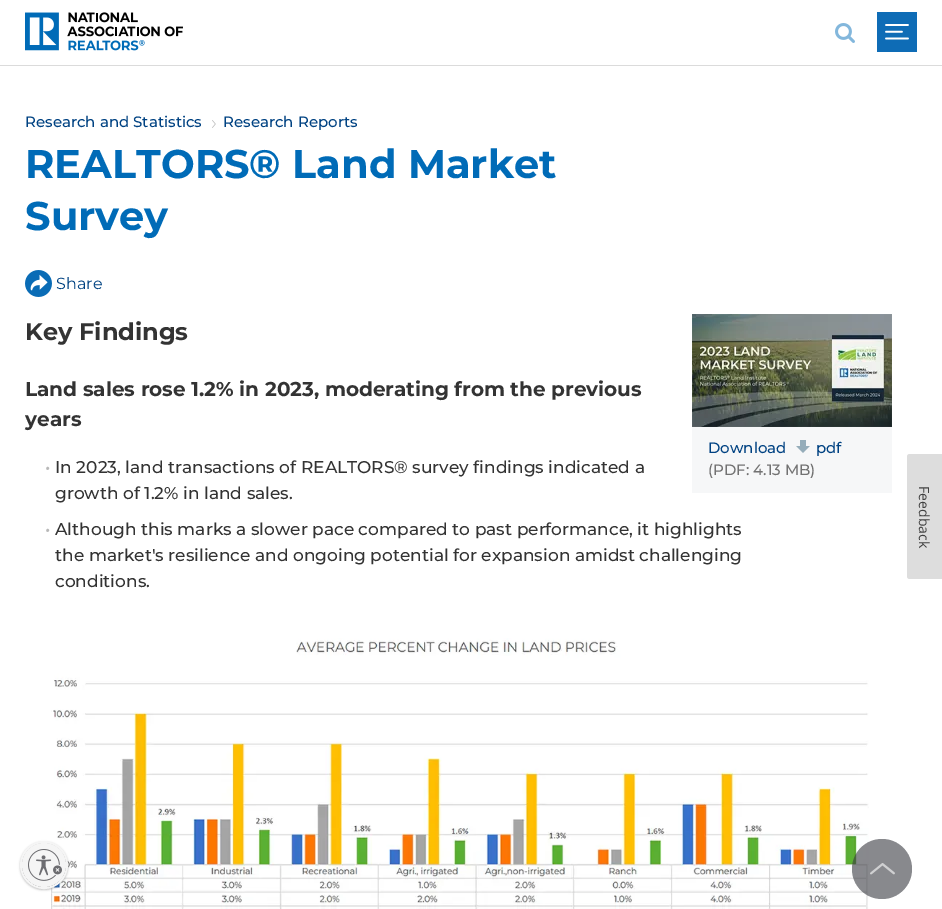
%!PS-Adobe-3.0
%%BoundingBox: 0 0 942 909
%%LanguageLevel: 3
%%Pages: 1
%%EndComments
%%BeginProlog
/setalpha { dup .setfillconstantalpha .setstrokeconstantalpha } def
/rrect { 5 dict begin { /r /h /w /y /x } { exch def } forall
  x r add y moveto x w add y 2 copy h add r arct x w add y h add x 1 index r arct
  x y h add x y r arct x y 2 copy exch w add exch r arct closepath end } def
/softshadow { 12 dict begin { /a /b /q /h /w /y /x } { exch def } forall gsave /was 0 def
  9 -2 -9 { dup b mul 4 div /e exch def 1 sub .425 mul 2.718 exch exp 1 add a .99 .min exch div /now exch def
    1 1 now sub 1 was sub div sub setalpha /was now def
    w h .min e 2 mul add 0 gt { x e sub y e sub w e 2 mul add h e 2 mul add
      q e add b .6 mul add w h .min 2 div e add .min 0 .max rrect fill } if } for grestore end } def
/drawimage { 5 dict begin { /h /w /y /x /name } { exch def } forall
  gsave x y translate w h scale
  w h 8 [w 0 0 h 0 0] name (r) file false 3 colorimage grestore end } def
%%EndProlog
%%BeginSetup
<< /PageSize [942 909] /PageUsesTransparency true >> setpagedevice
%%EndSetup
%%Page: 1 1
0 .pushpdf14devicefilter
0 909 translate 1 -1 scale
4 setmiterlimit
1 setgray
0 0 942 909 rectfill
0.859 setgray
0 65 942 1 rectfill
(images/1.raw) 25 12 158 39 drawimage
(images/2.raw) 835 23 20 20 drawimage
(images/3.raw) 877 12 40 40 drawimage
(images/4.raw) 212 120 4 8 drawimage
(images/5.raw) 25 270 27 27 drawimage
0.965 0.969 0.973 setrgbcolor
692 314 200 179 rectfill
(images/6.raw) 692 314 200 113 drawimage
(images/7.raw) 796 440 14 13 drawimage
(images/8.raw) 51 638 818 271 drawimage
0.6 setalpha
0.224 0.227 0.255 setrgbcolor
newpath 882 869 30 0 360 arc closepath fill
1 setalpha
(images/9.raw) 870 863 25 12 drawimage
0.867 setgray
newpath 942 454 moveto 942 579 lineto 910 579 lineto 908 579 907 578 907 576 curveto 907 457 lineto 907 455 908 454 910 454 curveto closepath fill
0 setgray
20 842 48 48 24 1 0.24 softshadow
0.961 setgray
2 setlinewidth
newpath 44 865 23 0 360 arc closepath stroke
gsave
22 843 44 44 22 rrect clip newpath
0 setgray
22 844 44 44 22 1 0.24 softshadow
grestore
newpath 44 865 22 0 360 arc closepath fill
(images/10.raw) 28 849 34 32 drawimage
/Montserrat-Medium [15 0 0 -15 0 0] selectfont
0 0.259 0.51 setrgbcolor
25 127 moveto (Research and Statistics) show
223 127 moveto (Research Reports) show
/Montserrat-Bold [40 0 0 -40 0 0] selectfont
0 0.42 0.718 setrgbcolor
25 178 moveto (REALTORS® Land Market) show
25 230 moveto (Survey) show
/Montserrat-Regular [16 0 0 -16 0 0] selectfont
0 0.259 0.51 setrgbcolor
56 289 moveto (Share) show
/Montserrat-Bold [24 0 0 -24 0 0] selectfont
0.2 setgray
25 340 moveto (Key Findings) show
/Montserrat-Bold [20 0 0 -20 0 0] selectfont
25 396 moveto (Land sales rose 1.2% in 2023, moderating from the previous) show
25 426 moveto (years) show
/Montserrat-Medium [17 0 0 -17 0 0] selectfont
0.722 setgray
45 473 moveto (•) show
0.2 setgray
55 473 moveto (In 2023, land transactions of REALTORS® survey findings indicated a) show
55 499 moveto (growth of 1.2% in land sales.) show
0.722 setgray
45 535 moveto (•) show
0.2 setgray
55 535 moveto (Although this marks a slower pace compared to past performance, it highlights) show
55 561 moveto (the market's resilience and ongoing potential for expansion amidst challenging) show
55 587 moveto (conditions.) show
/Montserrat-Medium [15 0 0 -15 0 0] selectfont
0 0.259 0.51 setrgbcolor
708 453 moveto (Download) show
816 453 moveto (pdf) show
0.447 setgray
708 475 moveto (\(PDF: 4.13 MB\)) show
/OpenSans-Regular [14 0 0 -14 0 0] selectfont
0.251 setgray
gsave 919 486 translate 90 rotate 0 0 moveto (Feedback) show grestore
.poppdf14devicefilter showpage
%%EOF
